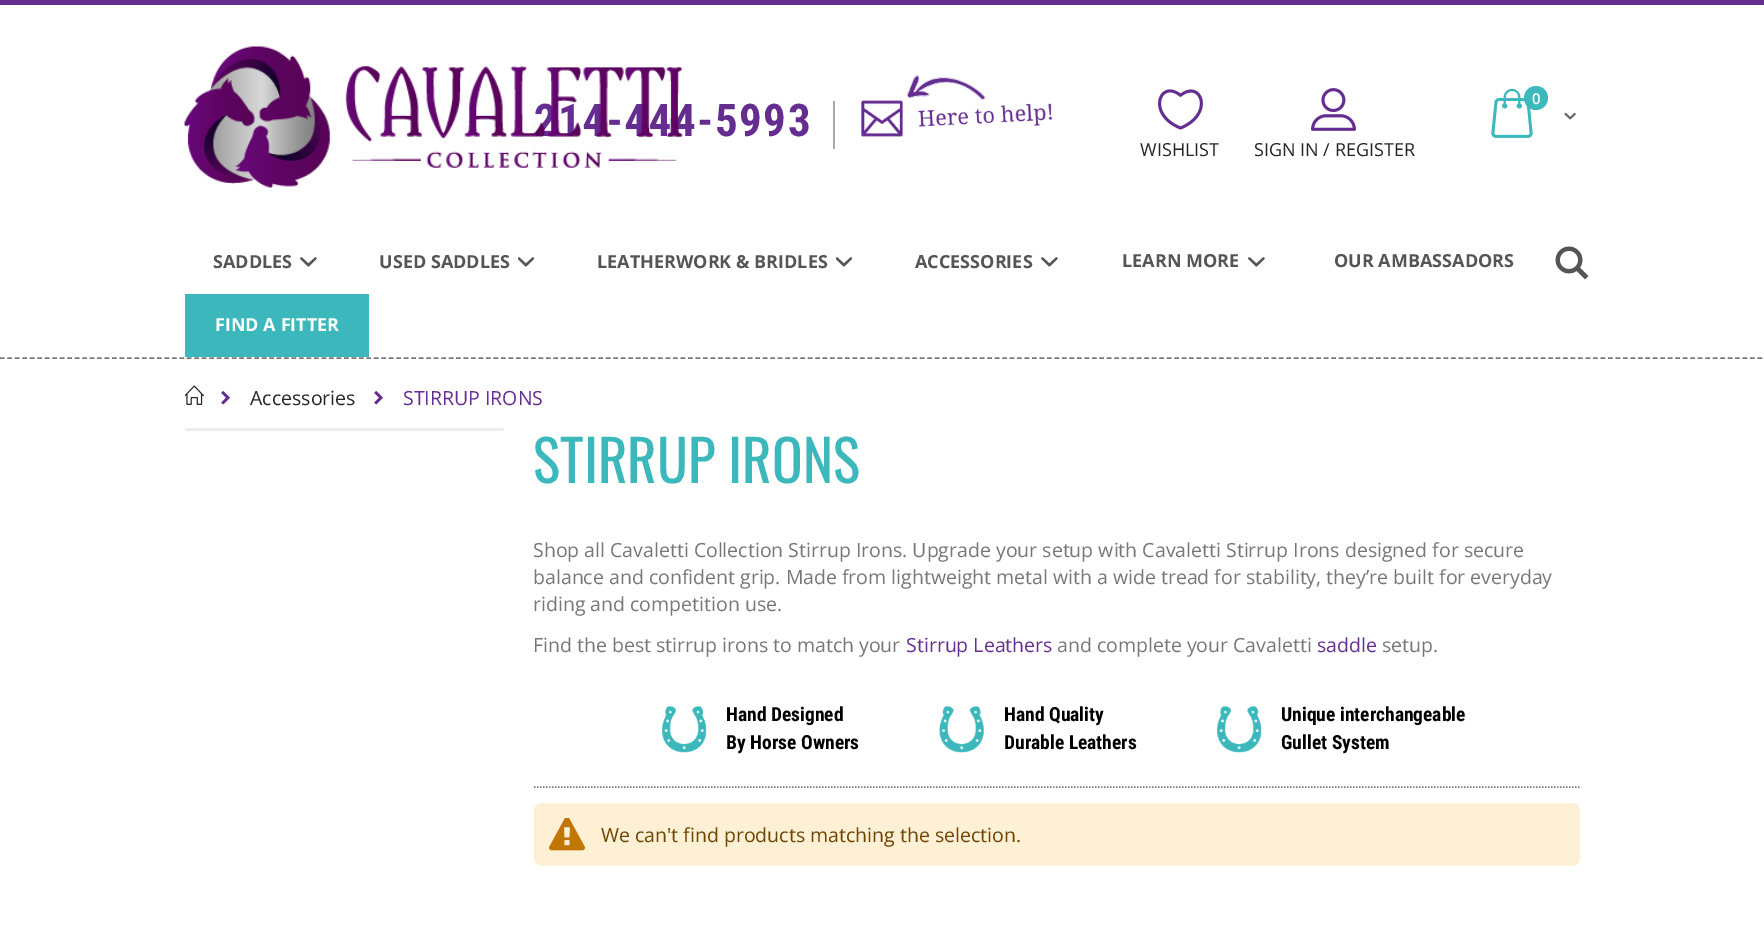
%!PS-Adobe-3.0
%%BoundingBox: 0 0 1764 945
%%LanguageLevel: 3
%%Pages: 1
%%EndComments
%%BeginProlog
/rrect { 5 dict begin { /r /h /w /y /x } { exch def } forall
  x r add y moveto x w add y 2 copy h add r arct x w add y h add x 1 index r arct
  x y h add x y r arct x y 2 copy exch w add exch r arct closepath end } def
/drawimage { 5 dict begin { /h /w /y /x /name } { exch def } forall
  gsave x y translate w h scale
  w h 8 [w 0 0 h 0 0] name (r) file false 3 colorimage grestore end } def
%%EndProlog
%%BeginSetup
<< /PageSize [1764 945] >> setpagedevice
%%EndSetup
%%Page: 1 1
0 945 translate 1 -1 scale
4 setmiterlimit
1 setgray
0 0 1764 945 rectfill
0.4 0.176 0.569 setrgbcolor
0 0 1764 5 rectfill
0.467 setgray
1.5 setlinewidth
[4.5 2.98] 0 setdash
newpath 0 358 moveto 1764 358 lineto stroke
(images/2.raw) 1491 88 42 50 drawimage
0.239 0.725 0.741 setrgbcolor
newpath 1536 98 12 0 360 arc closepath fill
(images/3.raw) 1564 112 12 8 drawimage
0.667 setgray
833 101 2 48 rectfill
(images/4.raw) 861 75 192 62 drawimage
(images/5.raw) 1158 89 45 41 drawimage
(images/6.raw) 1311 88 45 43 drawimage
(images/7.raw) 1555 246 34 34 drawimage
(images/8.raw) 300 257 17 10 drawimage
(images/9.raw) 518 257 16 10 drawimage
(images/9.raw) 836 257 16 10 drawimage
(images/8.raw) 1041 257 17 10 drawimage
(images/8.raw) 1248 257 17 10 drawimage
0.235 0.722 0.741 setrgbcolor
185 294 184 63 rectfill
(images/10.raw) 185 385 19 20 drawimage
(images/11.raw) 221 391 9 14 drawimage
(images/11.raw) 374 391 9 14 drawimage
0.933 setgray
185 428 319 3 1.5 rrect fill
(images/12.raw) 662 706 45 47 drawimage
(images/13.raw) 939 706 45 47 drawimage
(images/14.raw) 1217 706 45 47 drawimage
0.467 setgray
[1.5 1.5] 0 setdash
newpath 534 787 moveto 1579.5 787 lineto stroke
0.992 0.941 0.835 setrgbcolor
534 803 1046 63 8 rrect fill
(images/15.raw) 549 818 36 33 drawimage
/OpenSans-SemiBold [15 0 0 -15 0 0] selectfont
1 setgray
1532 104 moveto (0) show
/RobotoCondensed-Bold [45 0 0 -45 0 0] selectfont
0.4 0.176 0.569 setrgbcolor
534 136 moveto 1.5 0 (214-444-5993) ashow
(images/1.raw) 184 46 499 142 drawimage
/OpenSans-Regular [18 0 0 -18 0 0] selectfont
0.145 setgray
1140 156 moveto (WISHLIST) show
1254 156 moveto (SIGN IN / REGISTER) show
/OpenSans-Bold [18 0 0 -18 0 0] selectfont
0.333 setgray
213 268 moveto (SADDLES) show
379 268 moveto (USED SADDLES) show
597 268 moveto (LEATHERWORK & BRIDLES) show
915 268 moveto (ACCESSORIES) show
1122 267 moveto (LEARN MORE) show
1334 267 moveto (OUR AMBASSADORS) show
1 setgray
215 331 moveto (FIND A FITTER) show
/OpenSans-Regular [19.5 0 0 -19.5 0 0] selectfont
0.145 setgray
250 405 moveto (Accessories) show
0.4 0.176 0.569 setrgbcolor
403 405 moveto (STIRRUP IRONS) show
/Oswald-Regular [57 0 0 -57 0 0] selectfont
0.235 0.722 0.741 setrgbcolor
533 483 moveto (STIRRUP IRONS) show
/OpenSans-Regular [19.5 0 0 -19.5 0 0] selectfont
0.467 setgray
533 557 moveto (Shop all Cavaletti Collection Stirrup Irons. Upgrade your setup with Cavaletti Stirrup Irons designed for secure) show
533 584 moveto (balance and confident grip. Made from lightweight metal with a wide tread for stability, they’re built for everyday) show
533 611 moveto (riding and competition use.) show
533 652 moveto (Find the best stirrup irons to match your) show
0.4 0.176 0.569 setrgbcolor
906 652 moveto (Stirrup Leathers) show
0.467 setgray
1057 652 moveto (and complete your Cavaletti) show
0.4 0.176 0.569 setrgbcolor
1317 652 moveto (saddle) show
0.467 setgray
1382 652 moveto (setup.) show
/RobotoCondensed-Bold [19.5 0 0 -19.5 0 0] selectfont
0 setgray
726 721 moveto (Hand Designed) show
726 749 moveto (By Horse Owners) show
1004 721 moveto (Hand Quality) show
1004 749 moveto (Durable Leathers) show
1281 721 moveto (Unique interchangeable) show
1281 749 moveto (Gullet System) show
/OpenSans-Regular [19.5 0 0 -19.5 0 0] selectfont
0.435 0.267 0 setrgbcolor
601 842 moveto (We can't find products matching the selection.) show
showpage
%%EOF
